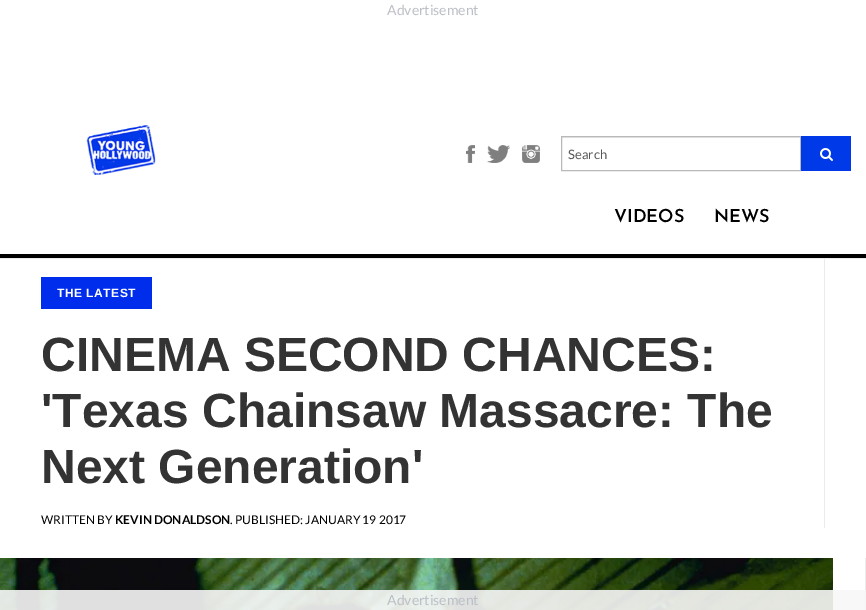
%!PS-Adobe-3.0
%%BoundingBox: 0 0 866 610
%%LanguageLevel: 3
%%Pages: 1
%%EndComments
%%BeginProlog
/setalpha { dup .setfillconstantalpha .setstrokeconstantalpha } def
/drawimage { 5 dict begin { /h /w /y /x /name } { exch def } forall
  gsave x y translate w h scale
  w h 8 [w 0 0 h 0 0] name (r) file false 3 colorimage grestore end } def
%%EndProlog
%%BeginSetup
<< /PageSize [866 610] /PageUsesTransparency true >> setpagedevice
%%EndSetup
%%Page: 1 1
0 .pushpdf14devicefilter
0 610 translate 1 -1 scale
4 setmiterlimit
1 setgray
0 0 866 610 rectfill
0 setgray
0 254 866 4 rectfill
(images/1.raw) 86 125 70 50 drawimage
(images/2.raw) 466 145 9 18 drawimage
(images/3.raw) 487 145 23 18 drawimage
(images/4.raw) 522 145 18 18 drawimage
0.925 setgray
562 137 238 1 rectfill
0.725 setgray
561.5 136.5 239 34 rectstroke
0 0.224 0.91 setrgbcolor
801 136 50 35 rectfill
(images/5.raw) 820 148 13 13 drawimage
0.922 setgray
0 258 866 1 rectfill
824 259 1 269 rectfill
0 0.176 0.925 setrgbcolor
41 277 111 32 rectfill
0.922 setgray
865 558 1 52 rectfill
(images/6.raw) 0 558 833 52 drawimage
0.9 setalpha
0.969 setgray
0 590 866 20 rectfill
/Lato-Regular [14 0 0 -14 0 0] selectfont
1 setalpha
0.737 0.749 0.773 setrgbcolor
387 15 moveto (Advertisement) show
/Lato-Regular [13 0 0 -13 0 0] selectfont
0.337 setgray
568 159 moveto (Search) show
/JosefinSans-SemiBold [18 0 0 -18 0 0] selectfont
0 setgray
614 222 moveto (VIDEOS) show
714 222 moveto (NEWS) show
/LiberationSans-Bold [12 0 0 -12 0 0] selectfont
1 setgray
57 297 moveto 0.5 0 (THE LATEST) ashow
/LiberationSans-Bold [48 0 0 -48 0 0] selectfont
0.2 setgray
41 371 moveto (CINEMA SECOND CHANCES:) show
41 427 moveto ('Texas Chainsaw Massacre: The) show
41 483 moveto (Next Generation') show
/Lato-Regular [12 0 0 -12 0 0] selectfont
0 setgray
41 524 moveto (WRITTEN BY) show
/Lato-Bold [12 0 0 -12 0 0] selectfont
115 524 moveto (KEVIN DONALDSON) show
/Lato-Regular [12 0 0 -12 0 0] selectfont
230 524 moveto (. PUBLISHED: JANUARY 19 2017) show
/Lato-Regular [14 0 0 -14 0 0] selectfont
0.737 0.749 0.773 setrgbcolor
387 605 moveto (Advertisement) show
.poppdf14devicefilter showpage
%%EOF
